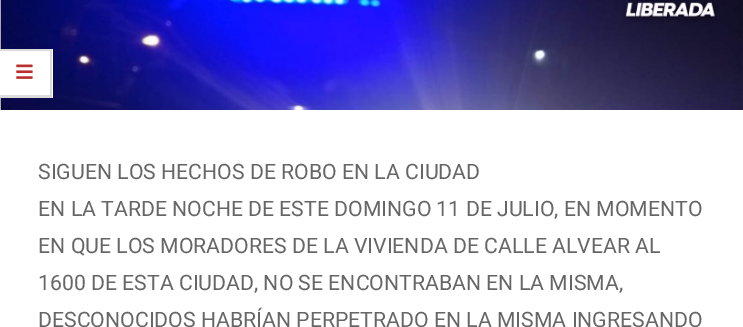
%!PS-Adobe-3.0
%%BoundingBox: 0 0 743 327
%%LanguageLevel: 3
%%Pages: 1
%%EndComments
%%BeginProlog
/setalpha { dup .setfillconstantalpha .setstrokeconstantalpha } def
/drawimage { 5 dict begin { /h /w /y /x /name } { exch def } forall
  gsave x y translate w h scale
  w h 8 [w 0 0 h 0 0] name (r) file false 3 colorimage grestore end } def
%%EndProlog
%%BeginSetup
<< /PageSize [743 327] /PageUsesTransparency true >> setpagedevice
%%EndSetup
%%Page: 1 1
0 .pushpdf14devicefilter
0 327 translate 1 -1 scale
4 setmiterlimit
1 setgray
0 0 743 327 rectfill
(images/2.raw) 0 0 743 110 drawimage
0 49 53 49 rectfill
0.859 setgray
newpath 0 49 moveto 52 49 lineto 50 51 lineto 0 51 lineto closepath fill
0.14 setalpha
0 setgray
newpath 52 49 moveto 52 98 lineto 50 95 lineto 50 51 lineto closepath fill
newpath 52 98 moveto 0 98 lineto 0 95 lineto 50 95 lineto closepath fill
1 setalpha
(images/1.raw) 16 64 17 15 drawimage
/Roboto-Regular [21.25 0 0 -21.25 0 0] selectfont
0.4 setgray
38 179 moveto (SIGUEN LOS HECHOS DE ROBO EN LA CIUDAD) show
38 216 moveto (EN LA TARDE NOCHE DE ESTE DOMINGO 11 DE JULIO, EN MOMENTO) show
38 253 moveto (EN QUE LOS MORADORES DE LA VIVIENDA DE CALLE ALVEAR AL) show
38 290 moveto (1600 DE ESTA CIUDAD, NO SE ENCONTRABAN EN LA MISMA,) show
38 327 moveto (DESCONOCIDOS HABRÍAN PERPETRADO EN LA MISMA INGRESANDO) show
.poppdf14devicefilter showpage
%%EOF
